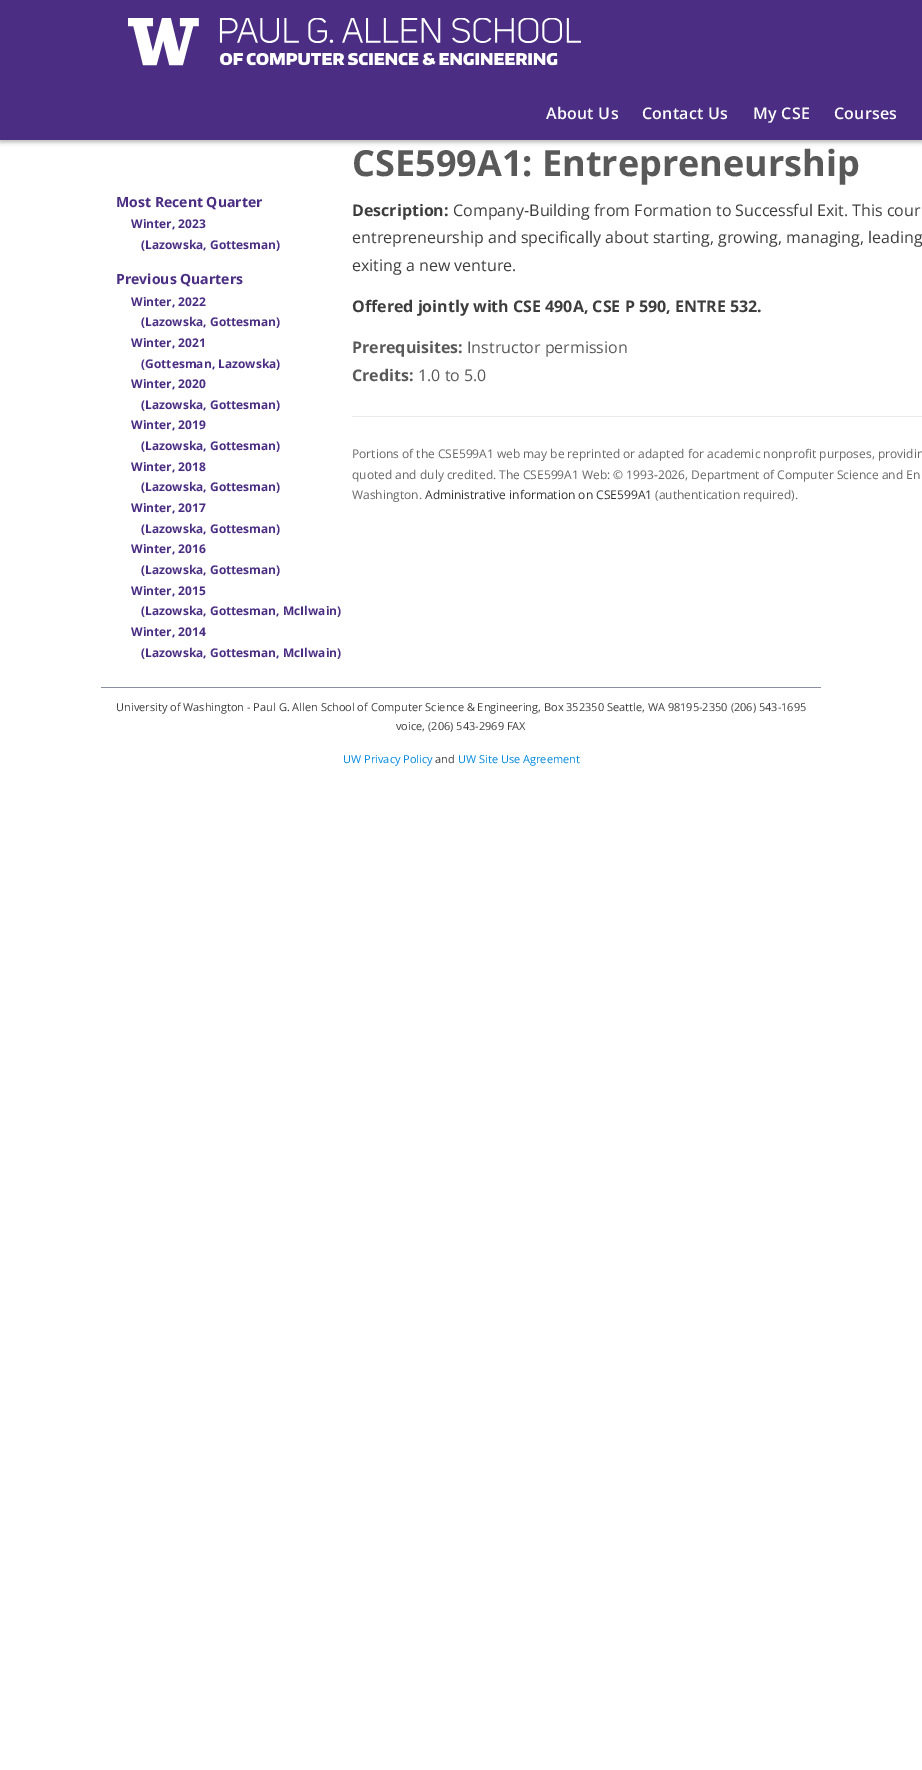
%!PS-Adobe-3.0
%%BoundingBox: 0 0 922 1770
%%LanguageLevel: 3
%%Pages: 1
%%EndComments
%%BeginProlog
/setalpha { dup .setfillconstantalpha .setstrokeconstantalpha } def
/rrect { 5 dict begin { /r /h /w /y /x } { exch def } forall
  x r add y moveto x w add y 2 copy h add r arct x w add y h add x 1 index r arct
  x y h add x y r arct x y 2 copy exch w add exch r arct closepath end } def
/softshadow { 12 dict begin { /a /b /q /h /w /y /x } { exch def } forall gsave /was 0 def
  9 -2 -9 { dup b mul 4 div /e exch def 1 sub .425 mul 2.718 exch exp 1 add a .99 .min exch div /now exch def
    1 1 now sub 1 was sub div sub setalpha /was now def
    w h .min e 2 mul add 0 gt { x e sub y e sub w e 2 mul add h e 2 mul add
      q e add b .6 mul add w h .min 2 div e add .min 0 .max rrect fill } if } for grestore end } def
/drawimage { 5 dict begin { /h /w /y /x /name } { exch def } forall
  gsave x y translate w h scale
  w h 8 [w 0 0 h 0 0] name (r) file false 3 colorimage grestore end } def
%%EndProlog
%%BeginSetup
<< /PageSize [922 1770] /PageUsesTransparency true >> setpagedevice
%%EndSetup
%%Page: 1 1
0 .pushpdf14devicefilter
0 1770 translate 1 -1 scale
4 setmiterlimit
1 setgray
0 0 922 1770 rectfill
0 setgray
0 2 922 140 0 2.5 0.3 softshadow
0.294 0.18 0.514 setrgbcolor
0 0 922 140 rectfill
(images/1.raw) 128 18 453 48 drawimage
0.922 setgray
352 416 570 1 rectfill
0.545 0.561 0.62 setrgbcolor
101 687 720 1 rectfill
/OpenSans-SemiBold [16 0 0 -16 0 0] selectfont
1 setgray
546 119 moveto 0.25 0 (About Us) ashow
642 119 moveto 0.25 0 (Contact Us) ashow
753 119 moveto 0.25 0 (My CSE) ashow
834 119 moveto 0.25 0 (Courses) ashow
/OpenSans-Bold [14 0 0 -14 0 0] selectfont
0.294 0.18 0.514 setrgbcolor
116 207 moveto (Most Recent Quarter) show
/OpenSans-Bold [12 0 0 -12 0 0] selectfont
131 228 moveto (Winter, 2023) show
141 249 moveto (\(Lazowska, Gottesman\)) show
/OpenSans-Bold [14 0 0 -14 0 0] selectfont
116 284 moveto (Previous Quarters) show
/OpenSans-Bold [12 0 0 -12 0 0] selectfont
131 306 moveto (Winter, 2022) show
141 326 moveto (\(Lazowska, Gottesman\)) show
131 347 moveto (Winter, 2021) show
141 368 moveto (\(Gottesman, Lazowska\)) show
131 388 moveto (Winter, 2020) show
141 409 moveto (\(Lazowska, Gottesman\)) show
131 429 moveto (Winter, 2019) show
141 450 moveto (\(Lazowska, Gottesman\)) show
131 471 moveto (Winter, 2018) show
141 491 moveto (\(Lazowska, Gottesman\)) show
131 512 moveto (Winter, 2017) show
141 533 moveto (\(Lazowska, Gottesman\)) show
131 553 moveto (Winter, 2016) show
141 574 moveto (\(Lazowska, Gottesman\)) show
131 595 moveto (Winter, 2015) show
141 615 moveto (\(Lazowska, Gottesman, McIlwain\)) show
131 636 moveto (Winter, 2014) show
141 657 moveto (\(Lazowska, Gottesman, McIlwain\)) show
/OpenSans-Bold [36 0 0 -36 0 0] selectfont
0.349 setgray
352 176 moveto (CSE599A1: Entrepreneurship) show
/OpenSans-Bold [16 0 0 -16 0 0] selectfont
0.239 setgray
352 216 moveto (Description:) show
/OpenSans-Regular [16 0 0 -16 0 0] selectfont
453 216 moveto (Company-Building from Formation to Successful Exit. This cour) show
352 243 moveto (entrepreneurship and specifically about starting, growing, managing, leading) show
352 271 moveto (exiting a new venture.) show
/OpenSans-Bold [16 0 0 -16 0 0] selectfont
352 312 moveto (Offered jointly with CSE 490A, CSE P 590, ENTRE 532.) show
0.349 setgray
352 353 moveto (Prerequisites:) show
/OpenSans-Regular [16 0 0 -16 0 0] selectfont
467 353 moveto (Instructor permission) show
/OpenSans-Bold [16 0 0 -16 0 0] selectfont
352 381 moveto (Credits:) show
/OpenSans-Regular [16 0 0 -16 0 0] selectfont
418 381 moveto (1.0 to 5.0) show
/OpenSans-Regular [12 0 0 -12 0 0] selectfont
0.4 setgray
352 458 moveto (Portions of the CSE599A1 web may be reprinted or adapted for academic nonprofit purposes, providin) show
352 479 moveto (quoted and duly credited. The CSE599A1 Web: © 1993-2026, Department of Computer Science and En) show
352 499 moveto (Washington.) show
0.2 setgray
425 499 moveto (Administrative information on CSE599A1) show
0.4 setgray
655 499 moveto (\(authentication required\).) show
/OpenSans-Regular [11 0 0 -11 0 0] selectfont
0.239 setgray
116 711 moveto (University of Washington - Paul G. Allen School of Computer Science & Engineering, Box 352350 Seattle, WA 98195-2350 \(206\) 543-1695) show
396 730 moveto (voice, \(206\) 543-2969 FAX) show
0 0.533 0.867 setrgbcolor
343 763 moveto (UW Privacy Policy) show
0.239 setgray
435 763 moveto (and) show
0 0.533 0.867 setrgbcolor
458 763 moveto (UW Site Use Agreement) show
.poppdf14devicefilter showpage
%%EOF
